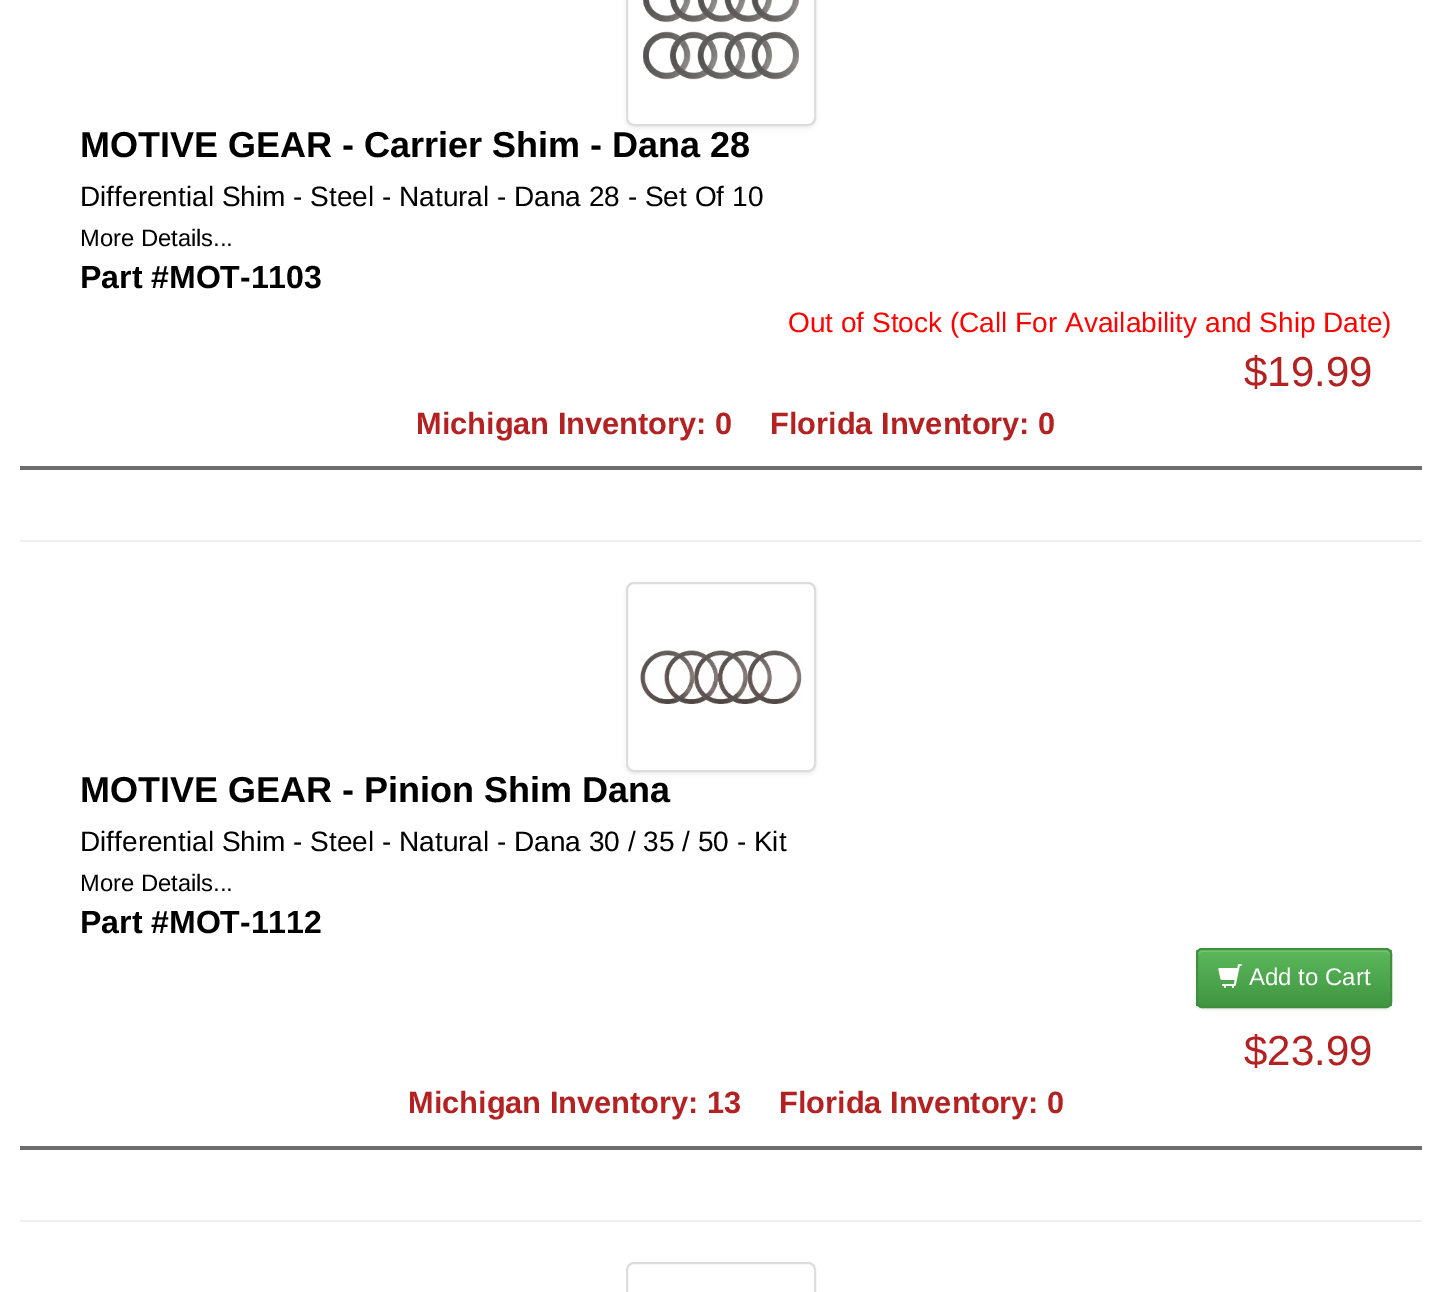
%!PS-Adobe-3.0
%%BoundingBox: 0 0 1442 1292
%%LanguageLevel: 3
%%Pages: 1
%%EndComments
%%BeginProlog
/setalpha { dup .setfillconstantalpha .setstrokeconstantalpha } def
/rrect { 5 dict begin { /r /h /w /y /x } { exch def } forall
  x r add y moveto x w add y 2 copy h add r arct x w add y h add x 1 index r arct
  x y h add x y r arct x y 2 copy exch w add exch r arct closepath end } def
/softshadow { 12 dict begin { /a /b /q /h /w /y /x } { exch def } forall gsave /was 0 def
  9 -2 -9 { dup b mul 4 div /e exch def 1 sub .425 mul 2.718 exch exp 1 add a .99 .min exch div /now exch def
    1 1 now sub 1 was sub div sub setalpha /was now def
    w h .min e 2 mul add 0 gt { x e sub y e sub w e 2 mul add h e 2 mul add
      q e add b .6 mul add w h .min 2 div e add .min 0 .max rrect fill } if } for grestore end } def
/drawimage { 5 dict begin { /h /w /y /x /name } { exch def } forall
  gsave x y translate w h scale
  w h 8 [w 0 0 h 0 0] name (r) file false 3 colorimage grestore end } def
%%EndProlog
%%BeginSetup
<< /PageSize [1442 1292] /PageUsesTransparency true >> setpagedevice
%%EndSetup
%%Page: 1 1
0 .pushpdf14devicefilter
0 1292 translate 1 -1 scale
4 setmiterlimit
1 setgray
0 0 1442 1292 rectfill
0.427 setgray
20 466 1402 4 rectfill
0 setgray
626 -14 190 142 8 2 0.07 softshadow
1 setgray
627 -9 188 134 7 rrect gsave fill grestore
0.867 setgray
2 setlinewidth
stroke
(images/1.raw) 643 0 157 80 drawimage
0.933 setgray
20 540 1402 2 rectfill
0.427 setgray
20 1146 1402 4 rectfill
0 setgray
626 584 190 190 8 2 0.07 softshadow
1 setgray
627 583 188 188 7 rrect gsave fill grestore
0.867 setgray
stroke
(images/2.raw) 640 650 162 54 drawimage
0 setgray
1196 950 196 60 6 1 0.07 softshadow
gsave
1196 948 196 60 6 rrect clip newpath
gsave newpath 1196 950 moveto 1392 950 lineto 1392 1006 lineto 1196 1006 lineto closepath clip newpath
<< /ShadingType 2 /ColorSpace /DeviceRGB /Coords [1294 950 1294 1006] /Extend [true true] /Function << /FunctionType 2 /Domain [0 1] /C0 [0.361 0.722 0.361] /C1 [0.255 0.588 0.255] /N 1 >> >> shfill grestore
grestore
0.455 0.761 0.455 setrgbcolor
newpath 1202 952 moveto 1386 952 lineto 1388 952 1390 954 1390 956 curveto 1390 954 lineto 1390 952 1388 950 1386 950 curveto 1202 950 lineto 1200 950 1198 952 1198 954 curveto 1198 956 lineto 1198 954 1200 952 1202 952 curveto closepath fill
0.243 0.561 0.243 setrgbcolor
1197 949 194 58 5 rrect stroke
(images/3.raw) 1218 964 24 24 drawimage
0.933 setgray
20 1220 1402 2 rectfill
0.867 setgray
627 1263 188 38 7 rrect stroke
/LiberationSans-Bold [36 0 0 -36 0 0] selectfont
0 setgray
80 157 moveto (MOTIVE GEAR - Carrier Shim - Dana 28) show
/LiberationSans-Regular [28 0 0 -28 0 0] selectfont
80 206 moveto (Differential Shim - Steel - Natural - Dana 28 - Set Of 10) show
/LiberationSans-Regular [23.75 0 0 -23.75 0 0] selectfont
80 246 moveto (More Details...) show
/LiberationSans-Bold [32 0 0 -32 0 0] selectfont
80 288 moveto (Part #MOT-1103) show
/LiberationSans-Regular [28 0 0 -28 0 0] selectfont
1 0 0 setrgbcolor
788 332 moveto (Out of Stock \(Call For Availability and Ship Date\)) show
/LiberationSans-Regular [42 0 0 -42 0 0] selectfont
0.698 0.133 0.133 setrgbcolor
1244 386 moveto ($19.99) show
/LiberationSans-Bold [30.75 0 0 -30.75 0 0] selectfont
416 434 moveto (Michigan Inventory: 0) show
770 434 moveto (Florida Inventory: 0) show
/LiberationSans-Bold [36 0 0 -36 0 0] selectfont
0 setgray
80 802 moveto (MOTIVE GEAR - Pinion Shim Dana) show
/LiberationSans-Regular [28 0 0 -28 0 0] selectfont
80 851 moveto (Differential Shim - Steel - Natural - Dana 30 / 35 / 50 - Kit) show
/LiberationSans-Regular [23.75 0 0 -23.75 0 0] selectfont
80 891 moveto (More Details...) show
/LiberationSans-Bold [32 0 0 -32 0 0] selectfont
80 933 moveto (Part #MOT-1112) show
/LiberationSans-Regular [24 0 0 -24 0 0] selectfont
1 setgray
1249 985 moveto (Add to Cart) show
/LiberationSans-Regular [42 0 0 -42 0 0] selectfont
0.698 0.133 0.133 setrgbcolor
1244 1065 moveto ($23.99) show
/LiberationSans-Bold [30.75 0 0 -30.75 0 0] selectfont
408 1113 moveto (Michigan Inventory: 13) show
779 1113 moveto (Florida Inventory: 0) show
.poppdf14devicefilter showpage
%%EOF
